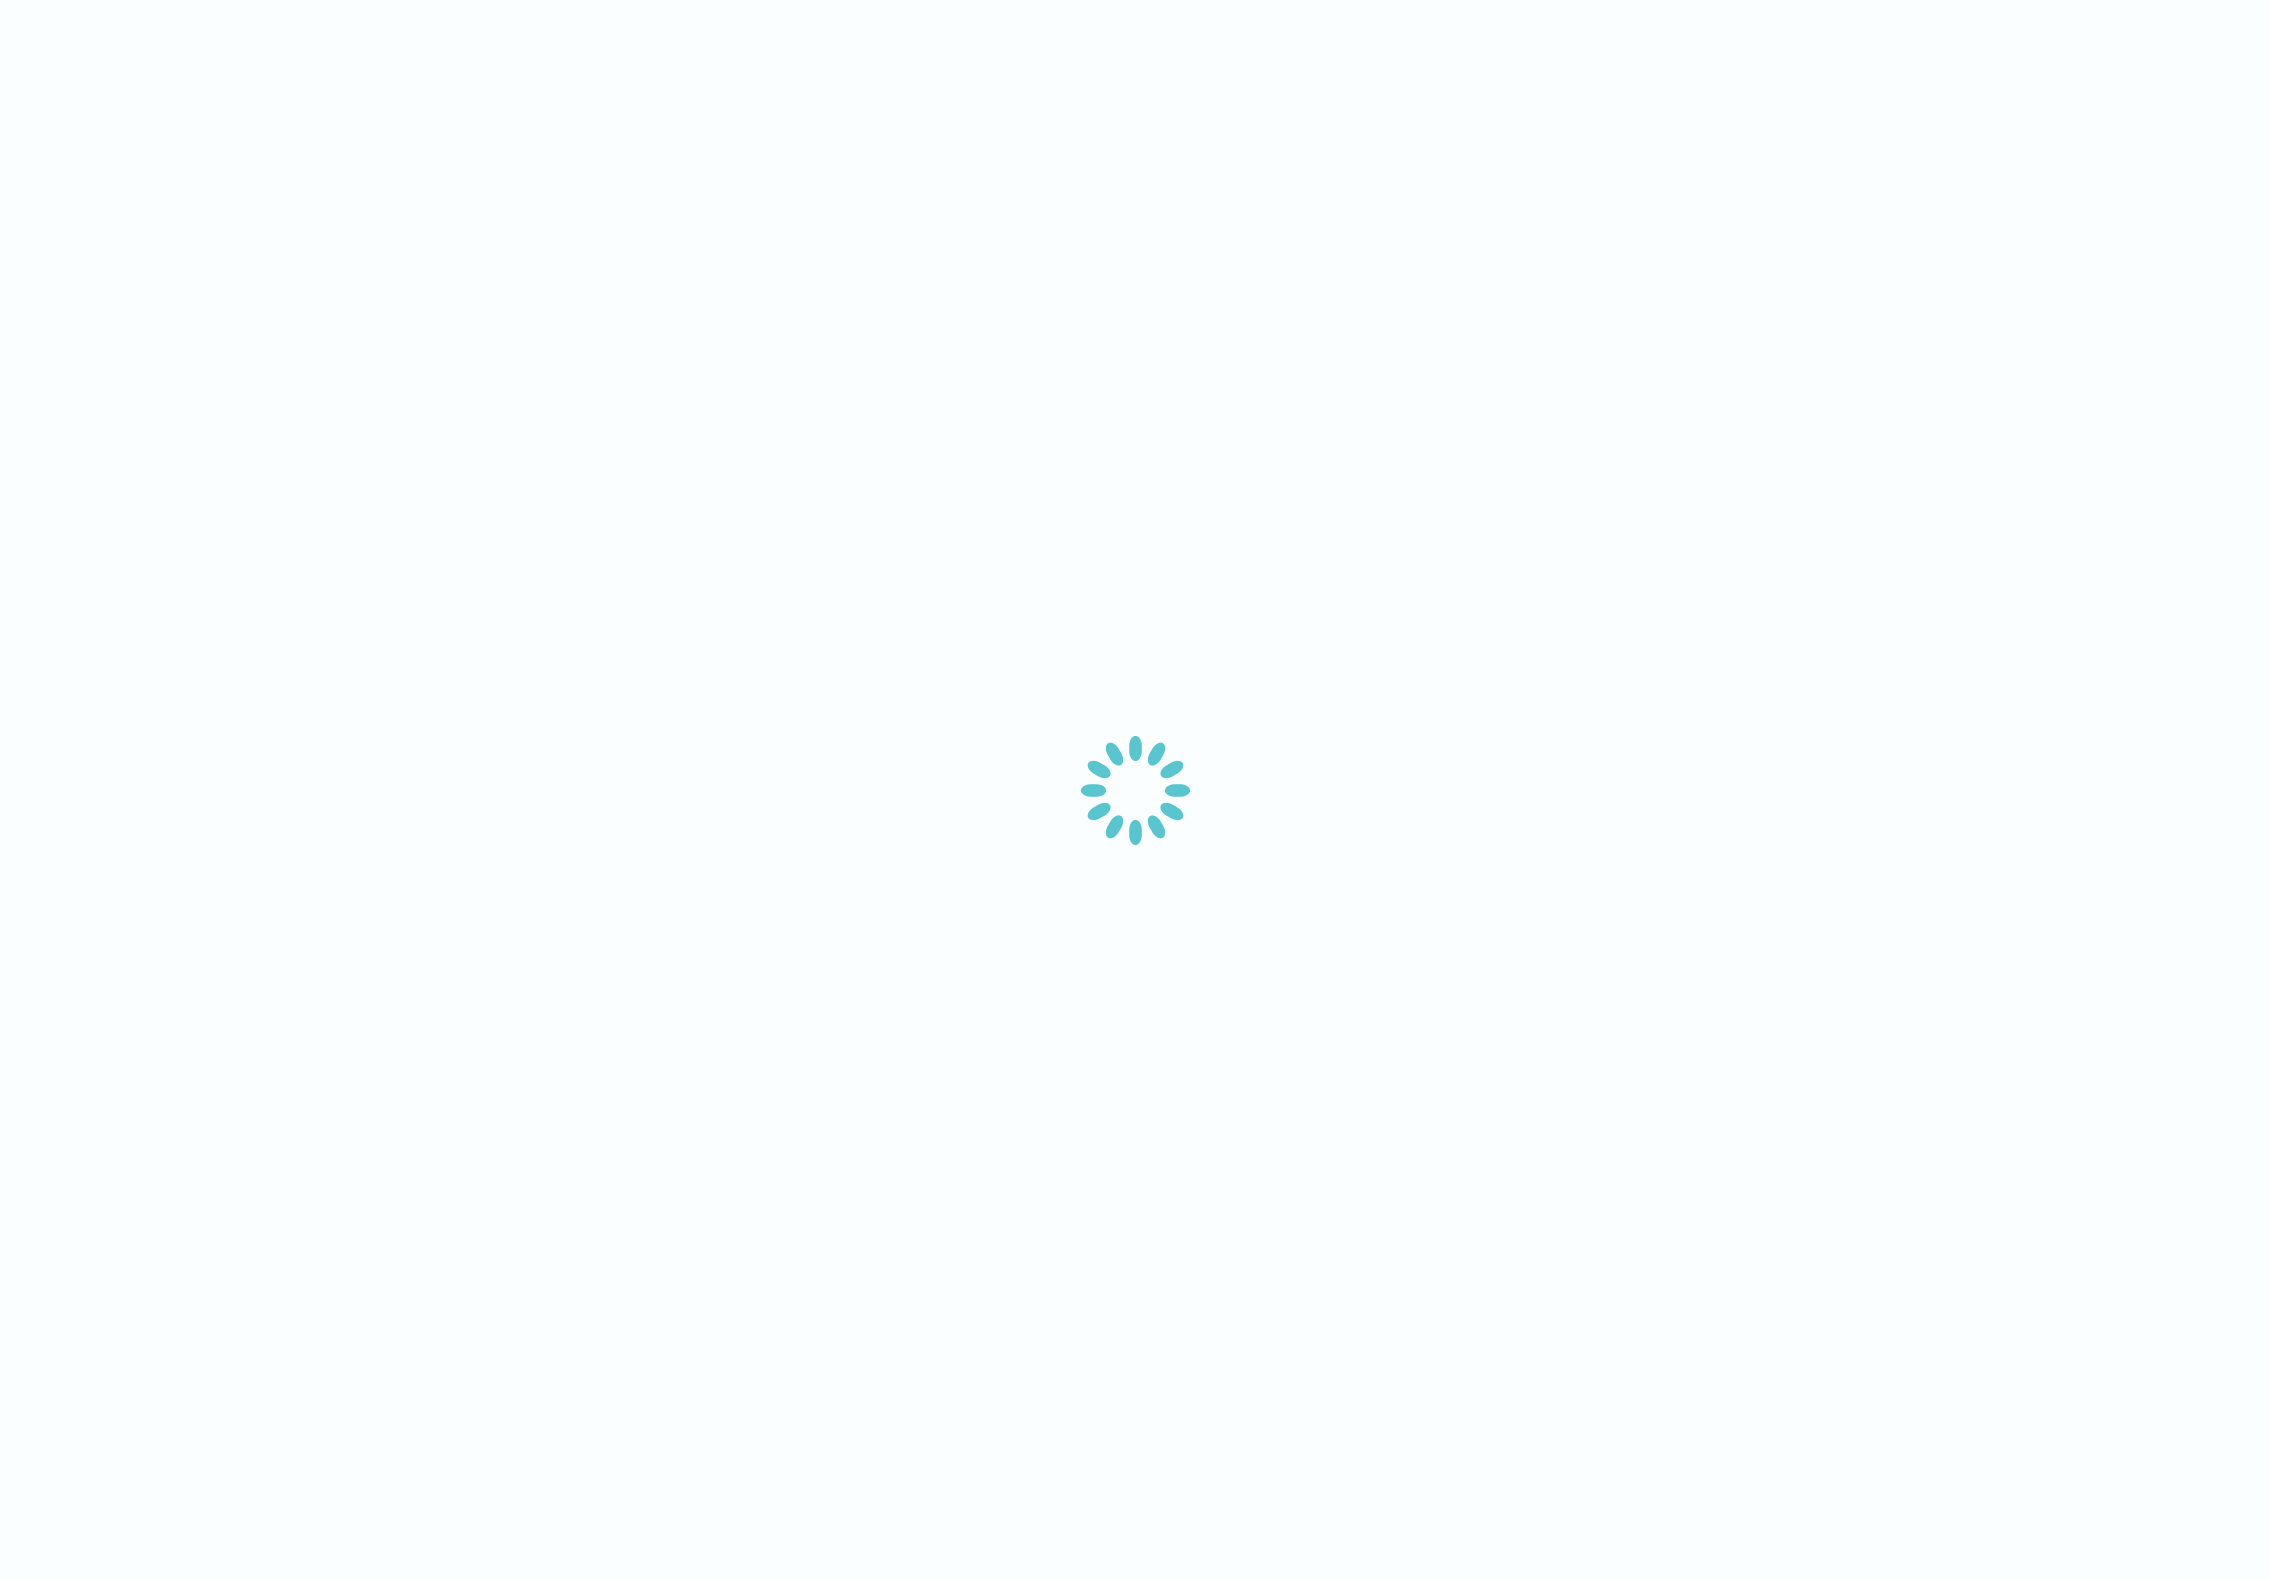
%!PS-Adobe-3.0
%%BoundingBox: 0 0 2269 1579
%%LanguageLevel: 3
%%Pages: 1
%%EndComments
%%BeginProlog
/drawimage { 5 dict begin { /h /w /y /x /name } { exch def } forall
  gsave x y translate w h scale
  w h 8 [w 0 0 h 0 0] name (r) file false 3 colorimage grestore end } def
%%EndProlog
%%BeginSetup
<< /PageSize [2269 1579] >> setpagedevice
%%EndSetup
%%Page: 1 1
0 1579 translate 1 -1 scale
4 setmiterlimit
0.984 0.996 0.996 setrgbcolor
0 0 2269 1579 rectfill
(images/1.raw) 1080 735 111 111 drawimage
showpage
%%EOF
